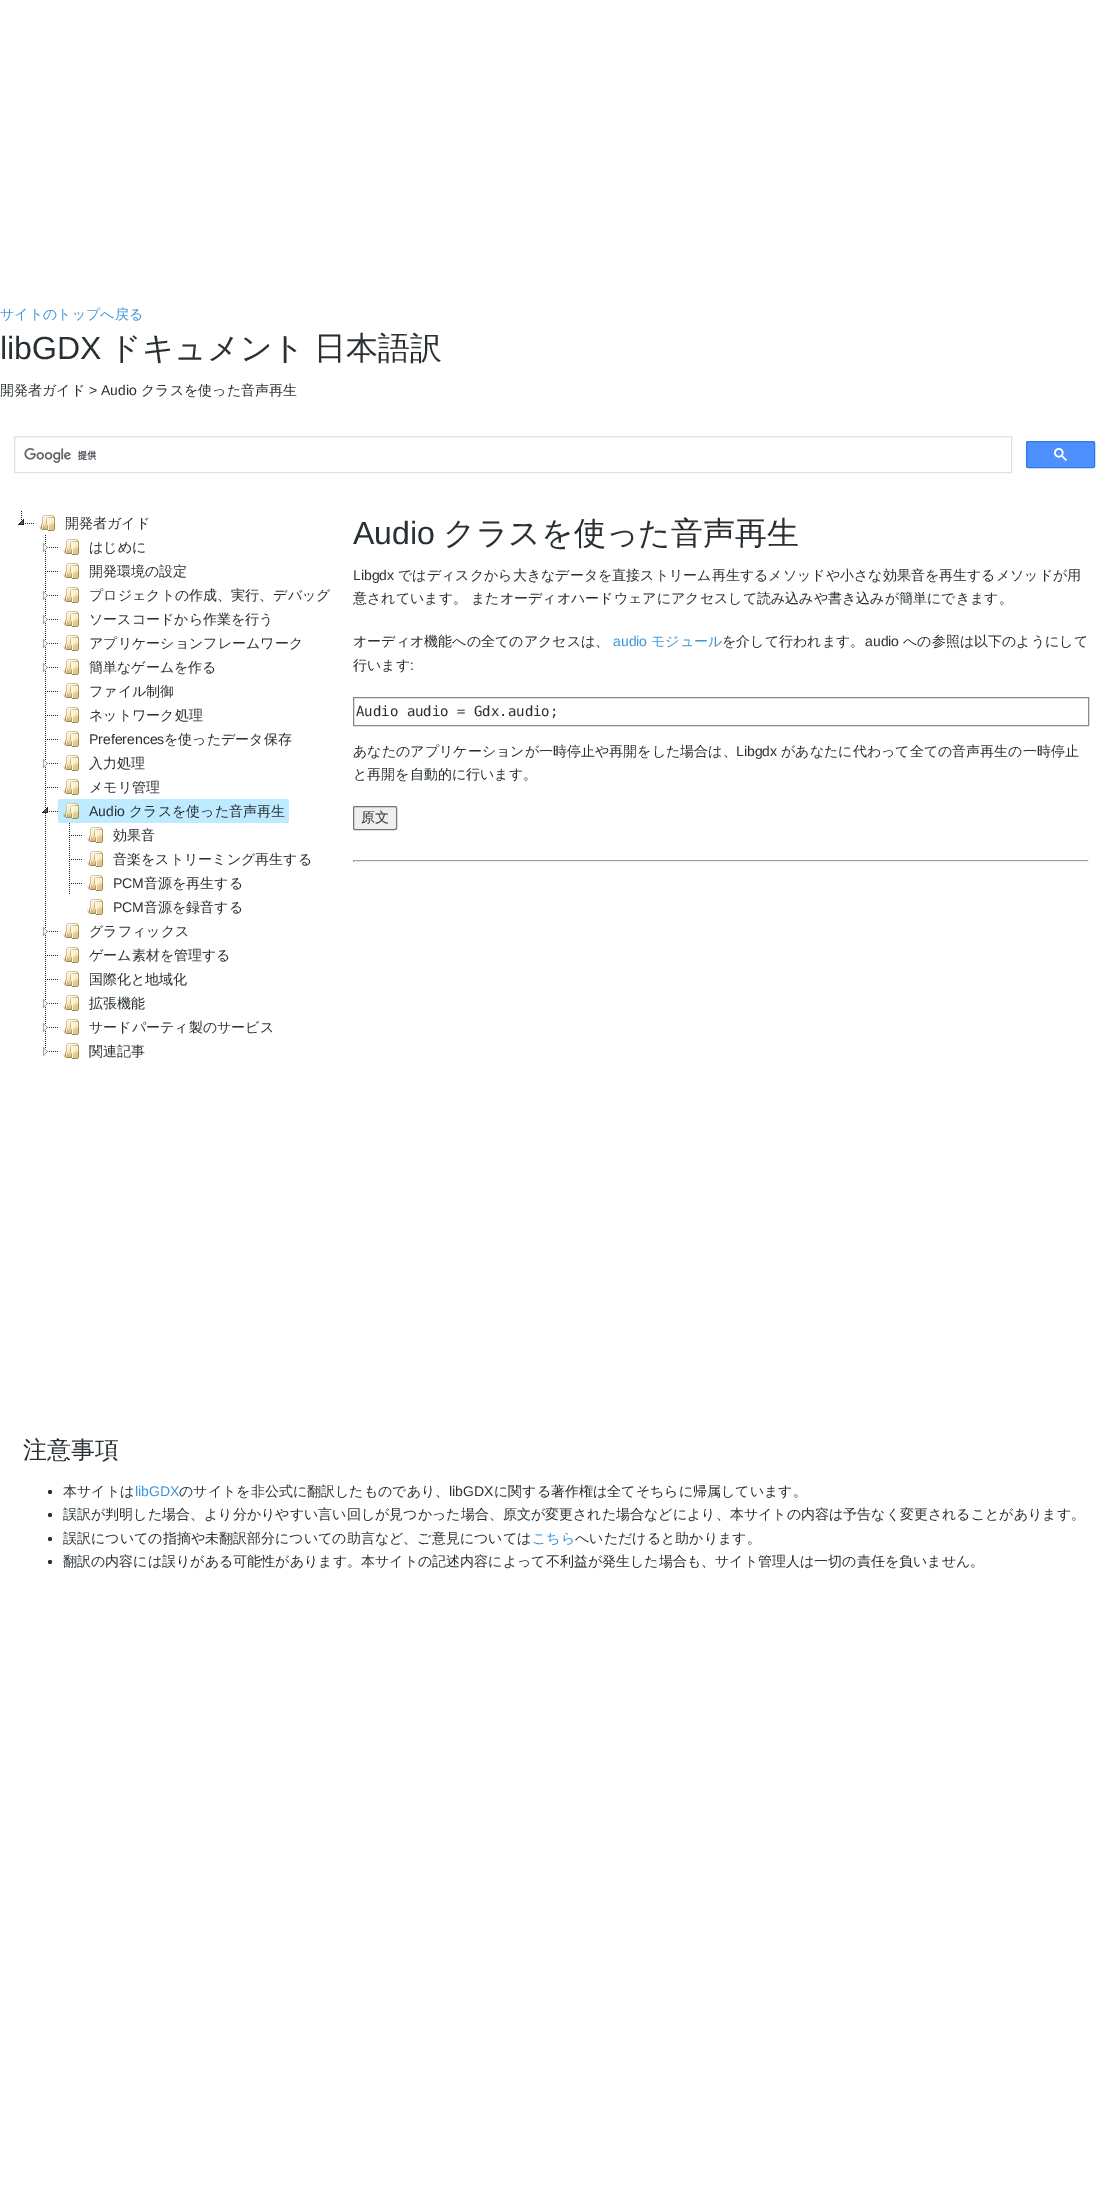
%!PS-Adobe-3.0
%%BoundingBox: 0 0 1109 2192
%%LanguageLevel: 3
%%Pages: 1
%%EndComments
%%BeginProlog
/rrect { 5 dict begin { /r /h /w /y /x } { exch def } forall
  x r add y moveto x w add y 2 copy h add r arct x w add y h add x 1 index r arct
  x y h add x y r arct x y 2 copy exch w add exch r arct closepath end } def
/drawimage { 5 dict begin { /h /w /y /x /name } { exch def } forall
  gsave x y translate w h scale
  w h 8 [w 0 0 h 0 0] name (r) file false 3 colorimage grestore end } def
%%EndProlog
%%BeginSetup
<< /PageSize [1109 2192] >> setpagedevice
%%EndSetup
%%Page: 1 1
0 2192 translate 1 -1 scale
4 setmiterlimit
1 setgray
0 0 1109 2192 rectfill
0.875 0.882 0.898 setrgbcolor
14.5 436.5 997 36 rectstroke
(images/1.raw) 24 448 73 15 drawimage
0.302 0.565 0.996 setrgbcolor
1026.5 441.5 68 26 1.5 rrect gsave fill grestore
0.188 0.475 0.929 setrgbcolor
stroke
(images/2.raw) 1054 448 13 13 drawimage
(images/3.raw) 18 511 16 14 drawimage
(images/4.raw) 39 515 16 16 drawimage
(images/5.raw) 45 535 1 23 drawimage
(images/6.raw) 43 543 15 9 drawimage
(images/4.raw) 63 539 16 16 drawimage
(images/5.raw) 45 559 1 23 drawimage
(images/7.raw) 47 571 11 1 drawimage
(images/4.raw) 63 563 16 16 drawimage
(images/5.raw) 45 583 1 23 drawimage
(images/6.raw) 43 591 15 9 drawimage
(images/4.raw) 63 587 16 16 drawimage
(images/5.raw) 45 607 1 23 drawimage
(images/6.raw) 43 615 15 9 drawimage
(images/4.raw) 63 611 16 16 drawimage
(images/5.raw) 45 631 1 23 drawimage
(images/6.raw) 43 639 15 9 drawimage
(images/4.raw) 63 635 16 16 drawimage
(images/5.raw) 45 655 1 23 drawimage
(images/6.raw) 43 663 15 9 drawimage
(images/4.raw) 63 659 16 16 drawimage
(images/5.raw) 45 679 1 23 drawimage
(images/7.raw) 47 691 11 1 drawimage
(images/4.raw) 63 683 16 16 drawimage
(images/5.raw) 45 703 1 23 drawimage
(images/7.raw) 47 715 11 1 drawimage
(images/4.raw) 63 707 16 16 drawimage
(images/5.raw) 45 727 1 23 drawimage
(images/7.raw) 47 739 11 1 drawimage
(images/4.raw) 63 731 16 16 drawimage
(images/5.raw) 45 751 1 23 drawimage
(images/6.raw) 43 759 15 9 drawimage
(images/4.raw) 63 755 16 16 drawimage
(images/5.raw) 45 775 1 23 drawimage
(images/7.raw) 47 787 11 1 drawimage
(images/4.raw) 63 779 16 16 drawimage
(images/8.raw) 45 799 1 119 drawimage
(images/9.raw) 42 807 16 6 drawimage
0.745 0.922 1 setrgbcolor
58 799 231 24 2 rrect fill
(images/10.raw) 63 803 16 16 drawimage
(images/5.raw) 69 823 1 23 drawimage
(images/7.raw) 71 835 11 1 drawimage
(images/4.raw) 87 827 16 16 drawimage
(images/5.raw) 69 847 1 23 drawimage
(images/7.raw) 71 859 11 1 drawimage
(images/4.raw) 87 851 16 16 drawimage
(images/5.raw) 69 871 1 23 drawimage
(images/7.raw) 71 883 11 1 drawimage
(images/4.raw) 87 875 16 16 drawimage
(images/4.raw) 87 899 16 16 drawimage
(images/5.raw) 45 919 1 23 drawimage
(images/6.raw) 43 927 15 9 drawimage
(images/4.raw) 63 923 16 16 drawimage
(images/5.raw) 45 943 1 23 drawimage
(images/7.raw) 47 955 11 1 drawimage
(images/4.raw) 63 947 16 16 drawimage
(images/5.raw) 45 967 1 23 drawimage
(images/7.raw) 47 979 11 1 drawimage
(images/4.raw) 63 971 16 16 drawimage
(images/5.raw) 45 991 1 23 drawimage
(images/6.raw) 43 999 15 9 drawimage
(images/4.raw) 63 995 16 16 drawimage
(images/5.raw) 45 1015 1 23 drawimage
(images/6.raw) 43 1023 15 9 drawimage
(images/4.raw) 63 1019 16 16 drawimage
(images/11.raw) 43 1039 15 17 drawimage
(images/4.raw) 63 1043 16 16 drawimage
0.533 setgray
353.5 697.5 735 28 rectstroke
0.937 setgray
353.5 806.5 43 23 1.5 rrect gsave fill grestore
0.463 setgray
stroke
0.624 setgray
353 860 736 1 rectfill
0.933 setgray
1088 860 1 2 rectfill
353 861 736 1 rectfill
0.624 setgray
353 860 1 2 rectfill
0.161 0.184 0.2 setrgbcolor
newpath 50 1492 2 0 360 arc closepath fill
newpath 50 1515 2 0 360 arc closepath fill
newpath 50 1539 2 0 360 arc closepath fill
newpath 50 1562 2 0 360 arc closepath fill
/WenQuanYiZenHei-Medium [14 0 0 -14 0 0] selectfont
0.231 0.58 0.851 setrgbcolor
0 319 moveto (サイトのトップへ戻る) show
/LiberationSans-Regular [32 0 0 -32 0 0] selectfont
0.161 0.184 0.2 setrgbcolor
0 359 moveto -0.1 0 (libGDX) ashow
/WenQuanYiZenHei-Medium [32 0 0 -32 0 0] selectfont
109 359 moveto -0.1 0 (ドキュメント 日本語訳) ashow
/WenQuanYiZenHei-Medium [14 0 0 -14 0 0] selectfont
0 395 moveto (開発者ガイド) show
/LiberationSans-Regular [14 0 0 -14 0 0] selectfont
89 395 moveto (> Audio) show
/WenQuanYiZenHei-Medium [14 0 0 -14 0 0] selectfont
141 395 moveto (クラスを使った音声再生) show
65 528 moveto (開発者ガイド) show
89 552 moveto (はじめに) show
89 576 moveto (開発環境の設定) show
89 600 moveto (プロジェクトの作成、実行、デバッグ) show
89 624 moveto (ソースコードから作業を行う) show
89 648 moveto (アプリケーションフレームワーク) show
89 672 moveto (簡単なゲームを作る) show
89 696 moveto (ファイル制御) show
89 720 moveto (ネットワーク処理) show
/LiberationSans-Regular [14 0 0 -14 0 0] selectfont
89 744 moveto (Preferences) show
/WenQuanYiZenHei-Medium [14 0 0 -14 0 0] selectfont
164 744 moveto (を使ったデータ保存) show
89 768 moveto (入力処理) show
89 792 moveto (メモリ管理) show
/LiberationSans-Regular [14 0 0 -14 0 0] selectfont
89 816 moveto (Audio) show
/WenQuanYiZenHei-Medium [14 0 0 -14 0 0] selectfont
129 816 moveto (クラスを使った音声再生) show
113 840 moveto (効果音) show
113 864 moveto (音楽をストリーミング再生する) show
/LiberationSans-Regular [14 0 0 -14 0 0] selectfont
113 888 moveto (PCM) show
/WenQuanYiZenHei-Medium [14 0 0 -14 0 0] selectfont
144 888 moveto (音源を再生する) show
/LiberationSans-Regular [14 0 0 -14 0 0] selectfont
113 912 moveto (PCM) show
/WenQuanYiZenHei-Medium [14 0 0 -14 0 0] selectfont
144 912 moveto (音源を録音する) show
89 936 moveto (グラフィックス) show
89 960 moveto (ゲーム素材を管理する) show
89 984 moveto (国際化と地域化) show
89 1008 moveto (拡張機能) show
89 1032 moveto (サードパーティ製のサービス) show
89 1056 moveto (関連記事) show
/LiberationSans-Regular [32 0 0 -32 0 0] selectfont
353 544 moveto -0.1 0 (Audio) ashow
/WenQuanYiZenHei-Medium [32 0 0 -32 0 0] selectfont
443 544 moveto -0.1 0 (クラスを使った音声再生) ashow
/LiberationSans-Regular [14 0 0 -14 0 0] selectfont
353 580 moveto (Libgdx) show
/WenQuanYiZenHei-Medium [14 0 0 -14 0 0] selectfont
398 580 moveto (ではディスクから大きなデータを直接ストリーム再生するメソッドや小さな効果音を再生するメソッドが用) show
353 603 moveto (意されています。 またオーディオハードウェアにアクセスして読み込みや書き込みが簡単にできます。) show
353 646 moveto (オーディオ機能への全てのアクセスは、) show
/LiberationSans-Regular [14 0 0 -14 0 0] selectfont
0.231 0.58 0.851 setrgbcolor
613 646 moveto (audio) show
/WenQuanYiZenHei-Medium [14 0 0 -14 0 0] selectfont
651 646 moveto (モジュール) show
0.161 0.184 0.2 setrgbcolor
722 646 moveto (を介して行われます。) show
/LiberationSans-Regular [14 0 0 -14 0 0] selectfont
865 646 moveto (audio) show
/WenQuanYiZenHei-Medium [14 0 0 -14 0 0] selectfont
903 646 moveto (への参照は以下のようにして) show
353 670 moveto (行います) show
/LiberationSans-Regular [14 0 0 -14 0 0] selectfont
410 670 moveto (:) show
/DejaVuSansMono-Regular [14 0 0 -14 0 0] selectfont
356 716 moveto (Audio audio = Gdx.audio;) show
/WenQuanYiZenHei-Medium [14 0 0 -14 0 0] selectfont
353 756 moveto (あなたのアプリケーションが一時停止や再開をした場合は、) show
/LiberationSans-Regular [14 0 0 -14 0 0] selectfont
736 756 moveto (Libgdx) show
/WenQuanYiZenHei-Medium [14 0 0 -14 0 0] selectfont
781 756 moveto (があなたに代わって全ての音声再生の一時停止) show
353 779 moveto (と再開を自動的に行います。) show
361 822 moveto (原文) show
/WenQuanYiZenHei-Medium [24 0 0 -24 0 0] selectfont
23 1458 moveto (注意事項) show
/WenQuanYiZenHei-Medium [14 0 0 -14 0 0] selectfont
63 1496 moveto (本サイトは) show
/LiberationSans-Regular [14 0 0 -14 0 0] selectfont
0.231 0.58 0.851 setrgbcolor
135 1496 moveto (libGDX) show
/WenQuanYiZenHei-Medium [14 0 0 -14 0 0] selectfont
0.161 0.184 0.2 setrgbcolor
179 1496 moveto (のサイトを非公式に翻訳したものであり、) show
/LiberationSans-Regular [14 0 0 -14 0 0] selectfont
449 1496 moveto (libGDX) show
/WenQuanYiZenHei-Medium [14 0 0 -14 0 0] selectfont
494 1496 moveto (に関する著作権は全てそちらに帰属しています。) show
63 1519 moveto (誤訳が判明した場合、より分かりやすい言い回しが見つかった場合、原文が変更された場合などにより、本サイトの内容は予告なく変更されることがあります。) show
63 1543 moveto (誤訳についての指摘や未翻訳部分についての助言など、ご意見については) show
0.231 0.58 0.851 setrgbcolor
532 1543 moveto (こちら) show
0.161 0.184 0.2 setrgbcolor
575 1543 moveto (へいただけると助かります。) show
63 1566 moveto (翻訳の内容には誤りがある可能性があります。本サイトの記述内容によって不利益が発生した場合も、サイト管理人は一切の責任を負いません。) show
showpage
%%EOF
